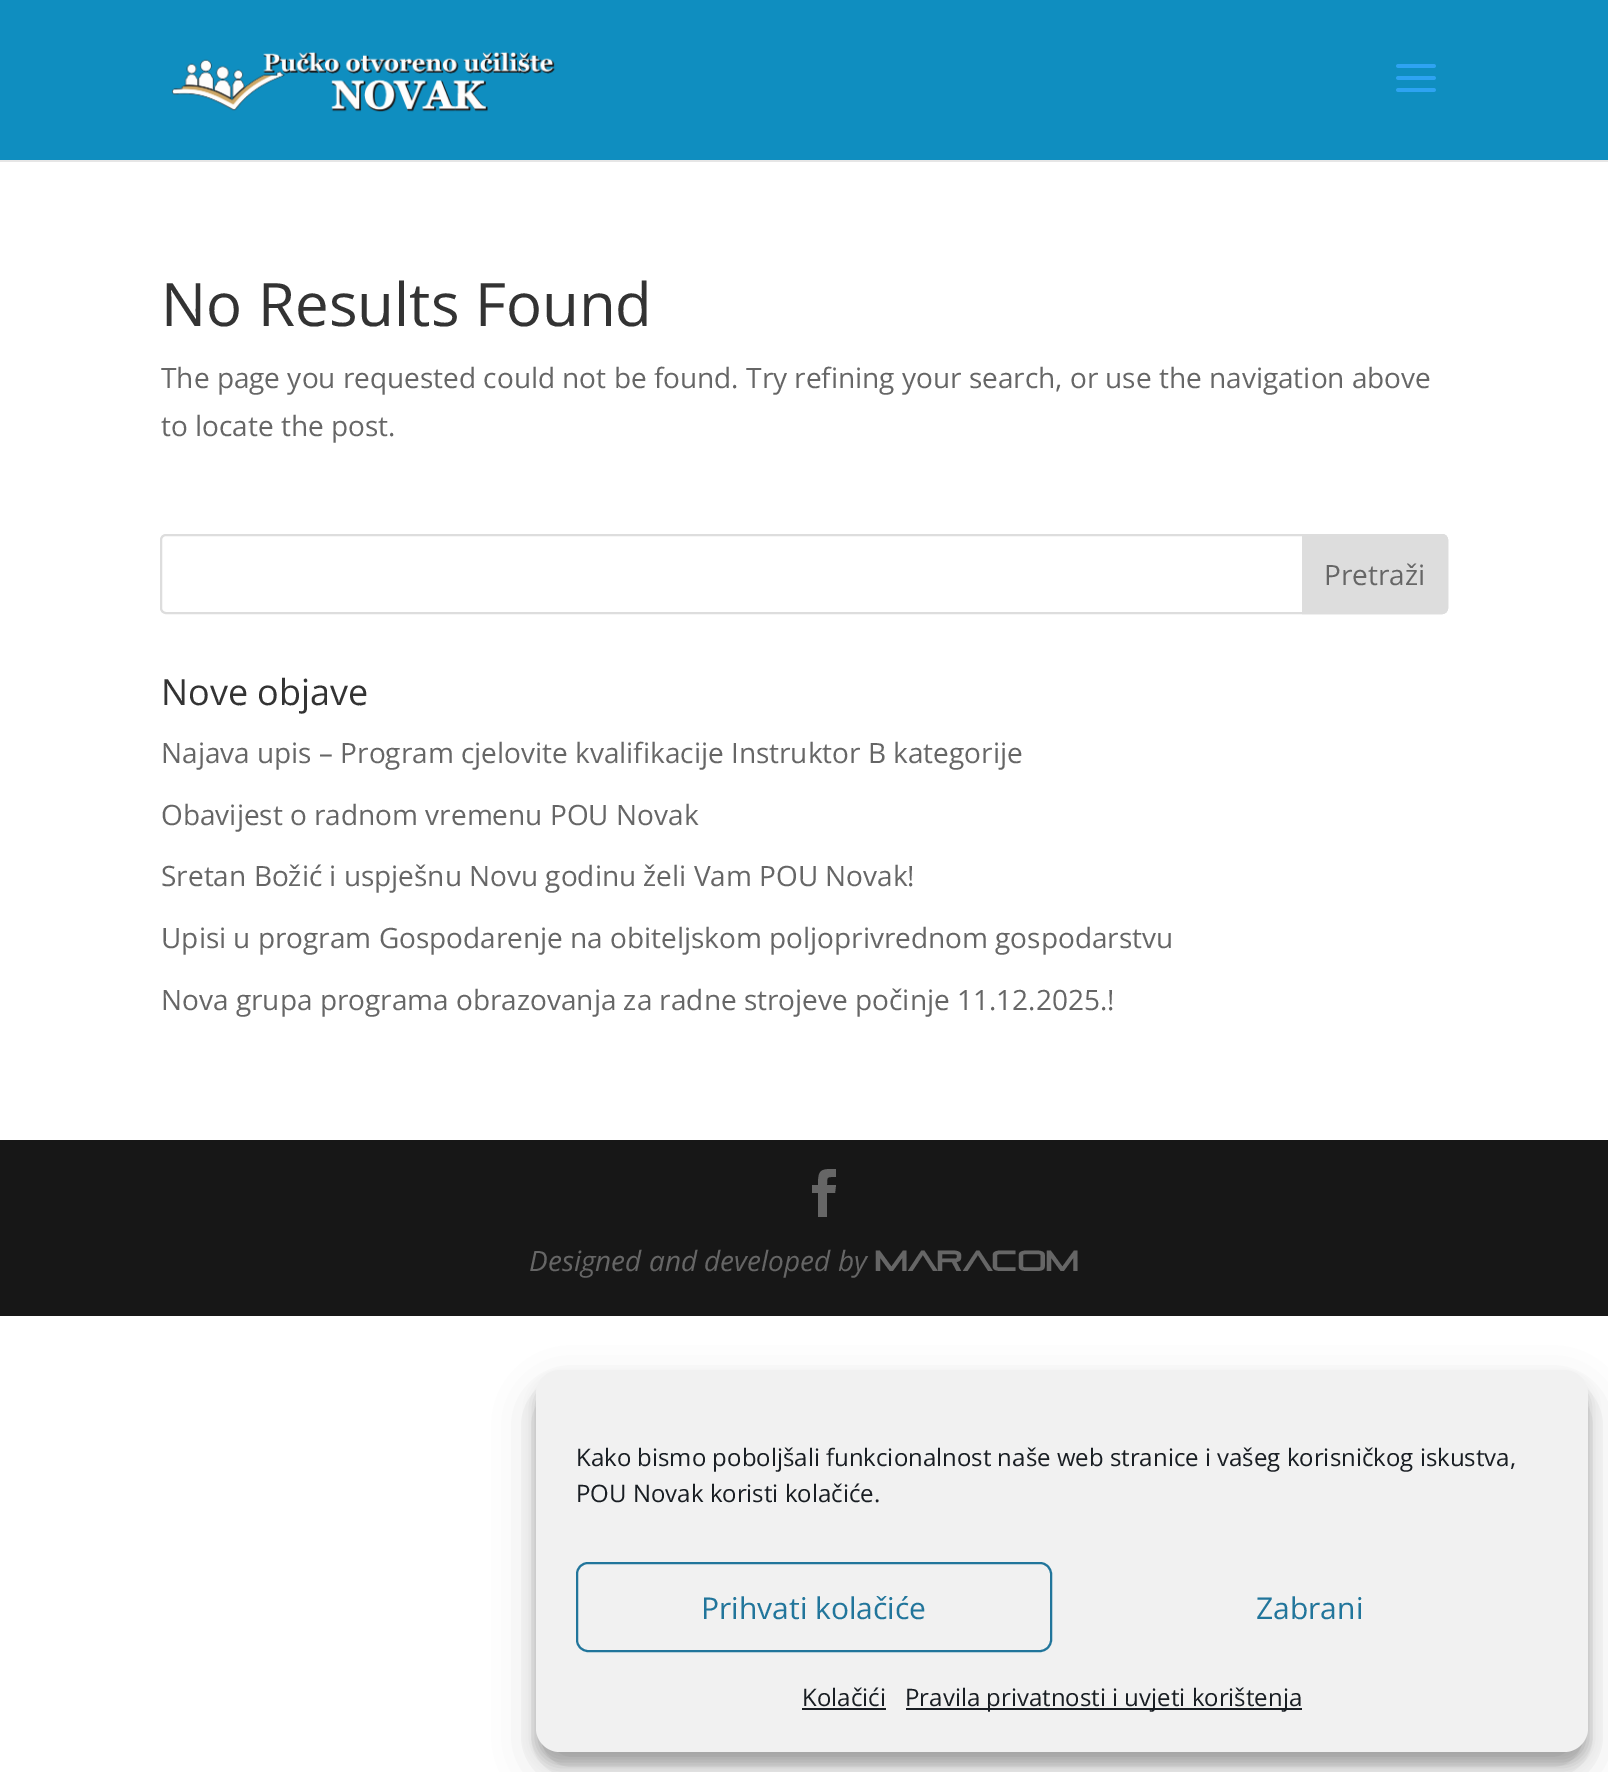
%!PS-Adobe-3.0
%%BoundingBox: 0 0 1608 1772
%%LanguageLevel: 3
%%Pages: 1
%%EndComments
%%BeginProlog
/setalpha { dup .setfillconstantalpha .setstrokeconstantalpha } def
/rrect { 5 dict begin { /r /h /w /y /x } { exch def } forall
  x r add y moveto x w add y 2 copy h add r arct x w add y h add x 1 index r arct
  x y h add x y r arct x y 2 copy exch w add exch r arct closepath end } def
/softshadow { 12 dict begin { /a /b /q /h /w /y /x } { exch def } forall gsave /was 0 def
  9 -2 -9 { dup b mul 4 div /e exch def 1 sub .425 mul 2.718 exch exp 1 add a .99 .min exch div /now exch def
    1 1 now sub 1 was sub div sub setalpha /was now def
    w h .min e 2 mul add 0 gt { x e sub y e sub w e 2 mul add h e 2 mul add
      q e add b .6 mul add w h .min 2 div e add .min 0 .max rrect fill } if } for grestore end } def
/drawimage { 5 dict begin { /h /w /y /x /name } { exch def } forall
  gsave x y translate w h scale
  w h 8 [w 0 0 h 0 0] name (r) file false 3 colorimage grestore end } def
%%EndProlog
%%BeginSetup
<< /PageSize [1608 1772] /PageUsesTransparency true >> setpagedevice
%%EndSetup
%%Page: 1 1
0 .pushpdf14devicefilter
0 1772 translate 1 -1 scale
4 setmiterlimit
1 setgray
0 0 1608 1772 rectfill
0.902 setgray
0 160 1608 2 rectfill
0.059 0.557 0.753 setrgbcolor
0 0 1608 160 rectfill
(images/1.raw) 171 51 384 61 drawimage
(images/2.raw) 1396 64 40 28 drawimage
0.867 setgray
2 setlinewidth
161 535 1286 78 5 rrect stroke
newpath 1303 535 moveto 1442 535 lineto 1445 535 1447 537 1447 540 curveto 1447 608 lineto 1447 611 1445 613 1442 613 curveto 1303 613 lineto closepath gsave fill grestore
stroke
0.09 setgray
0 1140 1608 176 rectfill
0.4 setgray
newpath 818 1217 moveto 827 1217 lineto 827 1193 lineto 835 1193 lineto 836 1185 lineto 827 1185 lineto 827 1176 827 1177 836 1177 curveto 836 1169 lineto 821 1169 818 1169 818 1185 curveto 812 1185 lineto 812 1193 lineto 818 1193 lineto closepath fill
0 setgray
536 1382 1052 382 24 6 0.23 softshadow
536 1390 1052 382 24 20 0.19 softshadow
0.945 setgray
536 1370 1052 382 24 rrect fill
0.129 0.459 0.608 setrgbcolor
577 1563 474 88 11 rrect stroke
0.098 0.118 0.137 setrgbcolor
802 1708 84 2 rectfill
906 1708 396 2 rectfill
/OpenSans-Regular [60 0 0 -60 0 0] selectfont
0.2 setgray
161 326 moveto (No Results Found) show
/OpenSans-Regular [28 0 0 -28 0 0] selectfont
0.4 setgray
161 388 moveto (The page you requested could not be found. Try refining your search, or use the navigation above) show
161 436 moveto (to locate the post.) show
1324 585 moveto (Pretraži) show
/OpenSans-Regular [36 0 0 -36 0 0] selectfont
0.2 setgray
161 705 moveto (Nove objave) show
/OpenSans-Regular [28 0 0 -28 0 0] selectfont
0.4 setgray
161 763 moveto (Najava upis – Program cjelovite kvalifikacije Instruktor B kategorije) show
161 825 moveto (Obavijest o radnom vremenu POU Novak) show
161 886 moveto (Sretan Božić i uspješnu Novu godinu želi Vam POU Novak!) show
161 948 moveto (Upisi u program Gospodarenje na obiteljskom poljoprivrednom gospodarstvu) show
161 1010 moveto (Nova grupa programa obrazovanja za radne strojeve počinje 11.12.2025.!) show
/OpenSans-Italic [28 0 0 -28 0 0] selectfont
529 1271 moveto (Designed and developed by) show
/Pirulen-Bold [28 0 0 -28 0 0] selectfont
874 1271 moveto (MARACOM) show
/OpenSans-Regular [24 0 0 -24 0 0] selectfont
0.098 0.118 0.137 setrgbcolor
576 1466 moveto (Kako bismo poboljšali funkcionalnost naše web stranice i vašeg korisničkog iskustva,) show
576 1502 moveto (POU Novak koristi kolačiće.) show
/OpenSans-Regular [30 0 0 -30 0 0] selectfont
0.129 0.459 0.608 setrgbcolor
701 1619 moveto (Prihvati kolačiće) show
1256 1619 moveto (Zabrani) show
/OpenSans-Regular [24 0 0 -24 0 0] selectfont
0.098 0.118 0.137 setrgbcolor
802 1706 moveto (Kolačići) show
905 1706 moveto (Pravila privatnosti i uvjeti korištenja) show
.poppdf14devicefilter showpage
%%EOF
